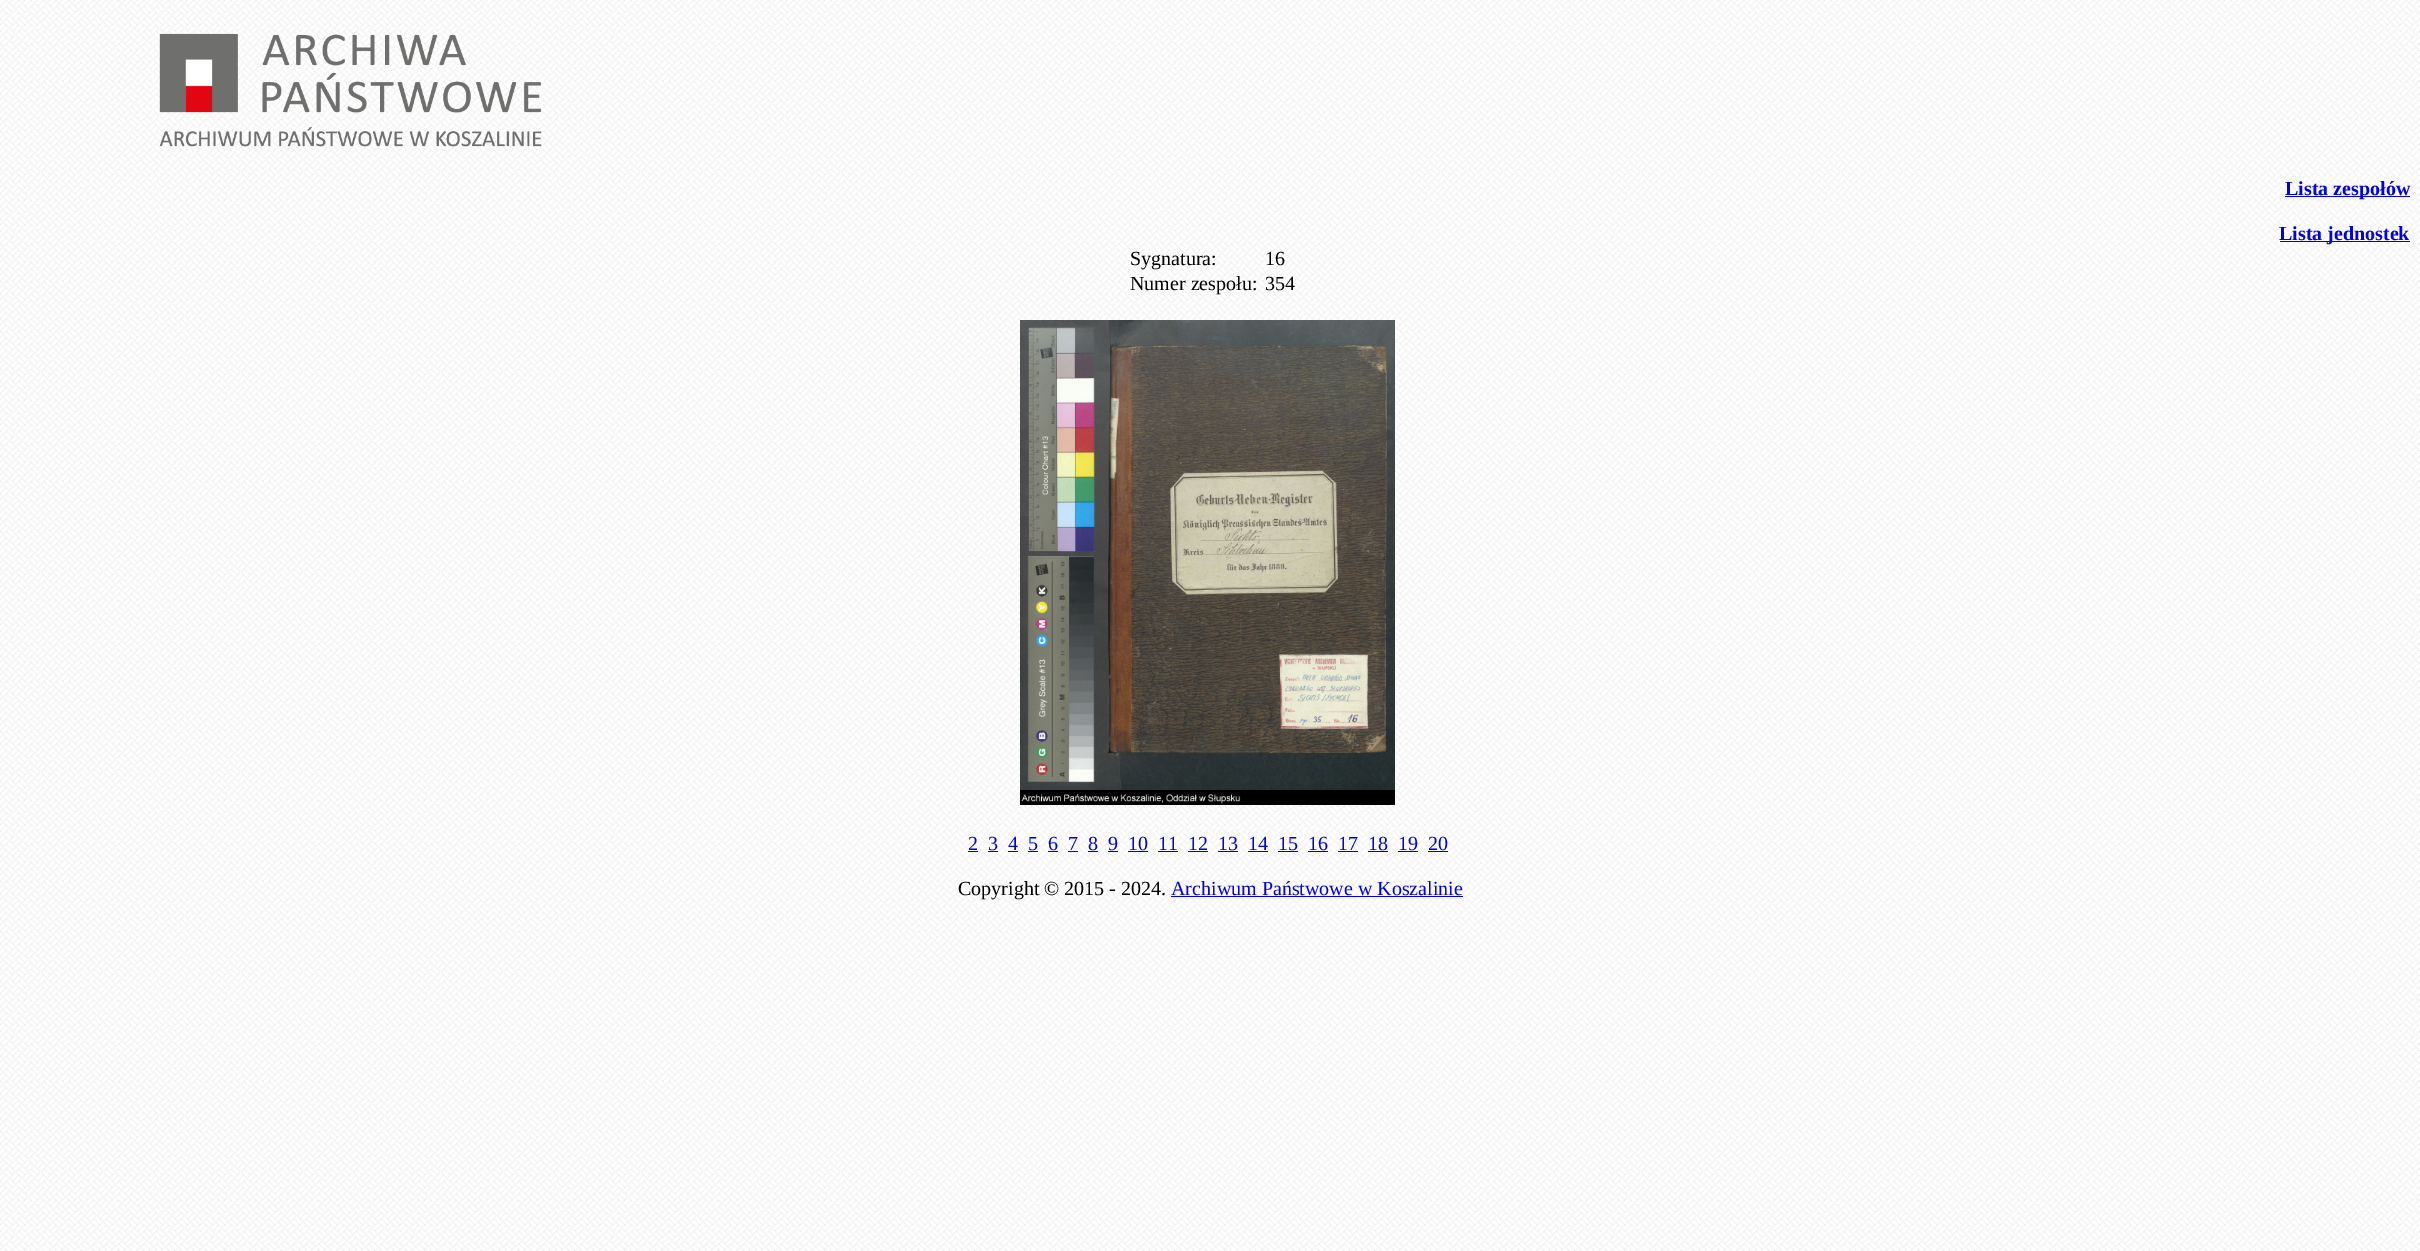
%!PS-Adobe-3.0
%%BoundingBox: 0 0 2420 1251
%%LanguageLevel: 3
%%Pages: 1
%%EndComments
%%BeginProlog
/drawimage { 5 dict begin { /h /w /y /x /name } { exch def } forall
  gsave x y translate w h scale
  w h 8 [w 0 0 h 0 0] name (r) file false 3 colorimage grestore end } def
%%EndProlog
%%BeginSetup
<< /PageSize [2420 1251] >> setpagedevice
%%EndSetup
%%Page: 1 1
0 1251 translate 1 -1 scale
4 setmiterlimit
1 setgray
0 0 2420 1251 rectfill
(images/1.raw) 0 0 2420 1251 drawimage
(images/2.raw) 159 33 383 114 drawimage
0 0 0.933 setrgbcolor
2285 196 125 1 rectfill
2280 241 130 1 rectfill
(images/3.raw) 1020 320 375 485 drawimage
968 851 10 1 rectfill
988 851 10 1 rectfill
1008 851 10 1 rectfill
1028 851 10 1 rectfill
1048 851 10 1 rectfill
1068 851 10 1 rectfill
1088 851 10 1 rectfill
1108 851 10 1 rectfill
1128 851 20 1 rectfill
1158 851 20 1 rectfill
1188 851 20 1 rectfill
1218 851 20 1 rectfill
1248 851 20 1 rectfill
1278 851 20 1 rectfill
1308 851 20 1 rectfill
1338 851 20 1 rectfill
1368 851 20 1 rectfill
1398 851 20 1 rectfill
1428 851 20 1 rectfill
1171 896 292 1 rectfill
/LiberationSerif-Bold [20 0 0 -20 0 0] selectfont
2285 195 moveto (Lista zespołów) show
2279 240 moveto (Lista jednostek) show
/LiberationSerif-Regular [20 0 0 -20 0 0] selectfont
0 setgray
1130 265 moveto (Sygnatura:) show
1265 265 moveto (16) show
1130 290 moveto (Numer zespołu:) show
1265 290 moveto (354) show
0 0 0.933 setrgbcolor
968 850 moveto (2) show
988 850 moveto (3) show
1008 850 moveto (4) show
1028 850 moveto (5) show
1048 850 moveto (6) show
1068 850 moveto (7) show
1088 850 moveto (8) show
1108 850 moveto (9) show
1128 850 moveto (10) show
1158 850 moveto (11) show
1188 850 moveto (12) show
1218 850 moveto (13) show
1248 850 moveto (14) show
1278 850 moveto (15) show
1308 850 moveto (16) show
1338 850 moveto (17) show
1368 850 moveto (18) show
1398 850 moveto (19) show
1428 850 moveto (20) show
0 setgray
958 895 moveto (Copyright © 2015 - 2024.) show
0 0 0.933 setrgbcolor
1171 895 moveto (Archiwum Państwowe w Koszalinie) show
showpage
%%EOF
